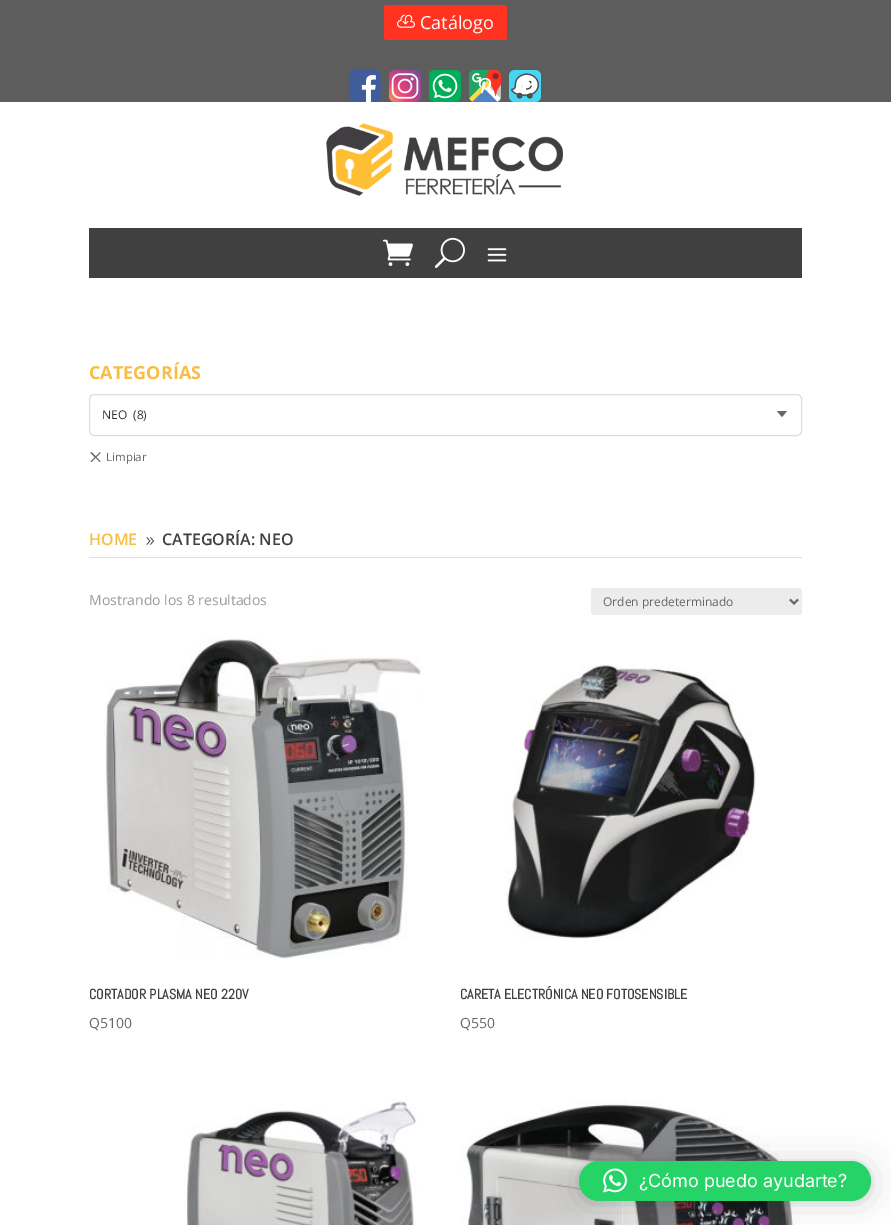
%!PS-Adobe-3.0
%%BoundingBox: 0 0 891 1225
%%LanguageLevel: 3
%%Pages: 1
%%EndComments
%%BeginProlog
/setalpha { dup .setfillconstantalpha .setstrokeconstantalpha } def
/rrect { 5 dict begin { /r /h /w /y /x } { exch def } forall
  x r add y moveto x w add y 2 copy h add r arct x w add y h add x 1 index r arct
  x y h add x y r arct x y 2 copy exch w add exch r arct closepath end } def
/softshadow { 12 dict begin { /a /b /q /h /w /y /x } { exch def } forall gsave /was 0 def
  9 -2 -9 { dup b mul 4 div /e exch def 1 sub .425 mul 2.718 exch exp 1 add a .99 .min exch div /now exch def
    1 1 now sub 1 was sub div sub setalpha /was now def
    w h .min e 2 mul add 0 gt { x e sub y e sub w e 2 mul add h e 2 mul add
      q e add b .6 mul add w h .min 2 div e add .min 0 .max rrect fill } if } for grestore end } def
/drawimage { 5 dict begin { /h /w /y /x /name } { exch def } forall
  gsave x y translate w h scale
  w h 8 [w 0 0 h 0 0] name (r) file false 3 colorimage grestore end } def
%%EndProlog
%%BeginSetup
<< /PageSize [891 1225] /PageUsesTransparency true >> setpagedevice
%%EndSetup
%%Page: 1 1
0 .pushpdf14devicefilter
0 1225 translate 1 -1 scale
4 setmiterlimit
1 setgray
0 0 891 1225 rectfill
0.369 0.365 0.369 setrgbcolor
0 0 891 102 rectfill
1 0.2 0.122 setrgbcolor
384 5 123 35 3 rrect fill
(images/1.raw) 397 14 18 14 drawimage
(images/2.raw) 349 70 32 32 drawimage
(images/3.raw) 389 70 32 32 drawimage
(images/4.raw) 429 70 32 32 drawimage
(images/5.raw) 469 70 32 32 drawimage
(images/6.raw) 478 78 14 16 drawimage
(images/7.raw) 509 70 32 32 drawimage
(images/8.raw) 522 80 8 14 drawimage
(images/9.raw) 326 123 237 73 drawimage
0.255 0.251 0.255 setrgbcolor
89 228 713 50 rectfill
(images/10.raw) 383 239 30 27 drawimage
(images/11.raw) 434 237 31 31 drawimage
(images/12.raw) 487 248 20 14 drawimage
0.867 setgray
89.5 394.5 712 41 4.5 rrect stroke
0.4 setgray
newpath 777 411 moveto 787 411 lineto 782 417 lineto closepath fill
newpath 90.5 461.5 moveto 100 452 lineto 100.5 453 lineto 91.5 462 lineto closepath fill
newpath 91.5 452 moveto 100.5 461.5 lineto 100 462 lineto 90.5 453 lineto closepath fill
0.878 setgray
89 557 713 1 rectfill
(images/13.raw) 146 537 8 8 drawimage
0.925 setgray
591 588 211 27 3 rrect fill
0.4 setgray
2 setlinewidth
newpath 790 599.5 moveto 794 603.5 lineto 798 599.5 lineto stroke
(images/14.raw) 104 638 319 321 drawimage
(images/15.raw) 506 665 251 274 drawimage
(images/16.raw) 184 1098 233 127 drawimage
(images/17.raw) 460 1100 336 125 drawimage
0 setgray
579 1163 292 40 20 16 0.16 softshadow
579 1162 292 40 20 3 0.06 softshadow
0.145 0.827 0.4 setrgbcolor
579 1161 292 40 20 rrect fill
(images/18.raw) 603 1168 24 25 drawimage
/OpenSans-Regular [18 0 0 -18 0 0] selectfont
1 setgray
420 29 moveto (Catálogo) show
/OpenSans-Bold [18 0 0 -18 0 0] selectfont
0.976 0.737 0.267 setrgbcolor
89 379 moveto (CATEGORÍAS) show
/OpenSans-Regular [12 0 0 -12 0 0] selectfont
0.2 setgray
102 419 moveto (NEO) show
133 419 moveto (\(8\)) show
/OpenSans-Regular [11.5 0 0 -11.5 0 0] selectfont
0.4 setgray
106 461 moveto (Limpiar) show
/OpenSans-SemiBold [16 0 0 -16 0 0] selectfont
0.976 0.737 0.267 setrgbcolor
89 545 moveto (HOME) show
0.255 0.251 0.255 setrgbcolor
162 545 moveto (CATEGORÍA: NEO) show
/OpenSans-Regular [14 0 0 -14 0 0] selectfont
0.6 setgray
89 605 moveto (Mostrando los 8 resultados) show
/OpenSans-Regular [12 0 0 -12 0 0] selectfont
0.4 setgray
603 606 moveto (Orden predeterminado) show
/Abel-Bold [14 0 0 -14 0 0] selectfont
0.255 0.251 0.255 setrgbcolor
89 999 moveto (CORTADOR PLASMA NEO 220V) show
/OpenSans-Regular [14 0 0 -14 0 0] selectfont
0.4 setgray
89 1028 moveto (Q5100) show
/Abel-Bold [14 0 0 -14 0 0] selectfont
0.255 0.251 0.255 setrgbcolor
460 999 moveto (CARETA ELECTRÓNICA NEO FOTOSENSIBLE) show
/OpenSans-Regular [14 0 0 -14 0 0] selectfont
0.4 setgray
460 1028 moveto (Q550) show
/Inter-Regular [18 0 0 -18 0 0] selectfont
1 setgray
639 1187 moveto (¿Cómo puedo ayudarte?) show
.poppdf14devicefilter showpage
%%EOF
